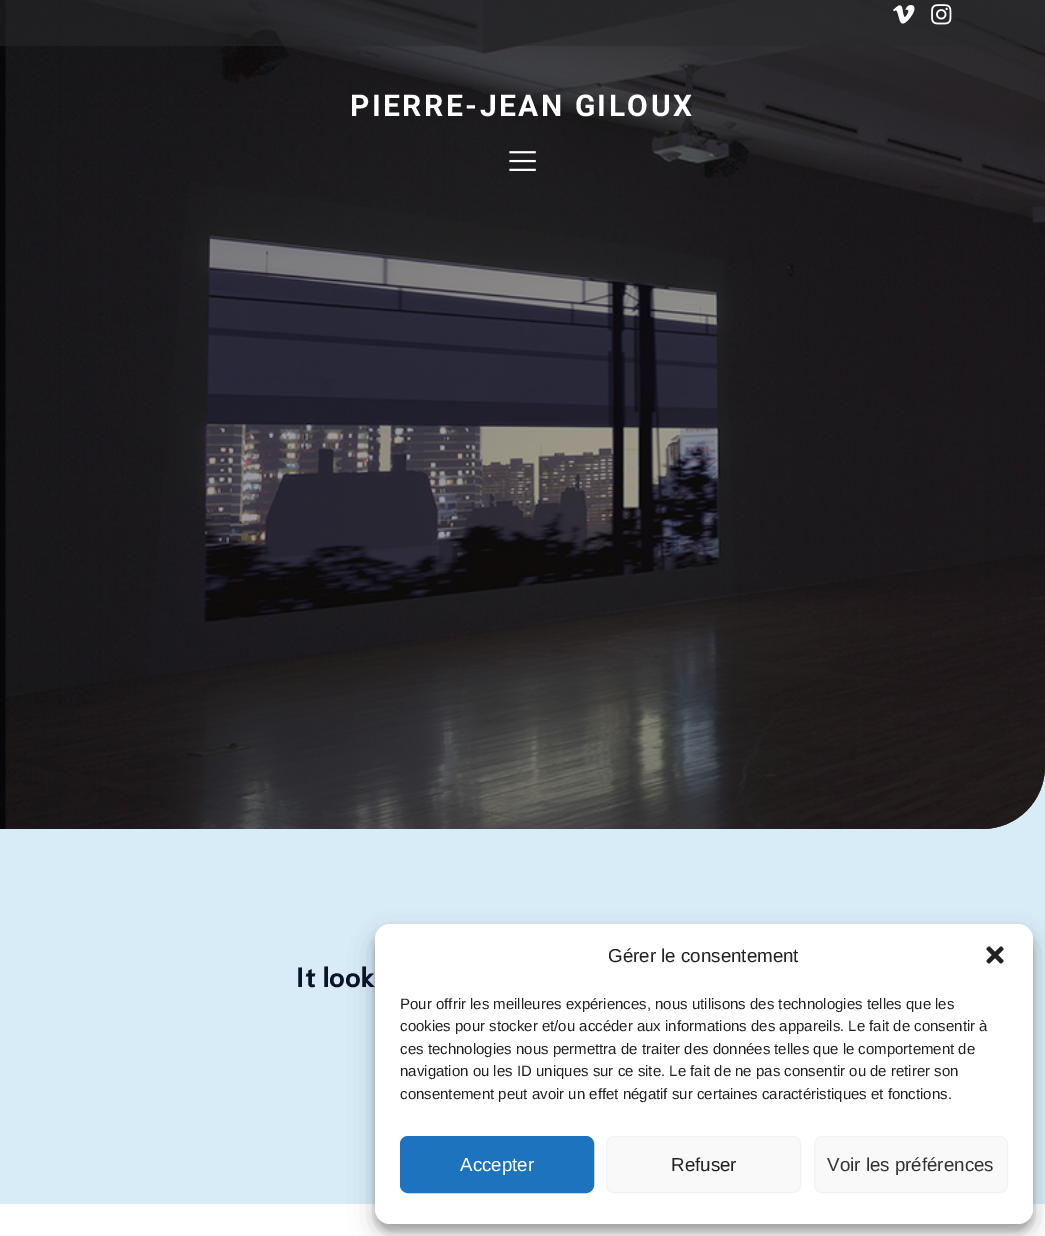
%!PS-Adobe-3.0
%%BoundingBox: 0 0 1045 1236
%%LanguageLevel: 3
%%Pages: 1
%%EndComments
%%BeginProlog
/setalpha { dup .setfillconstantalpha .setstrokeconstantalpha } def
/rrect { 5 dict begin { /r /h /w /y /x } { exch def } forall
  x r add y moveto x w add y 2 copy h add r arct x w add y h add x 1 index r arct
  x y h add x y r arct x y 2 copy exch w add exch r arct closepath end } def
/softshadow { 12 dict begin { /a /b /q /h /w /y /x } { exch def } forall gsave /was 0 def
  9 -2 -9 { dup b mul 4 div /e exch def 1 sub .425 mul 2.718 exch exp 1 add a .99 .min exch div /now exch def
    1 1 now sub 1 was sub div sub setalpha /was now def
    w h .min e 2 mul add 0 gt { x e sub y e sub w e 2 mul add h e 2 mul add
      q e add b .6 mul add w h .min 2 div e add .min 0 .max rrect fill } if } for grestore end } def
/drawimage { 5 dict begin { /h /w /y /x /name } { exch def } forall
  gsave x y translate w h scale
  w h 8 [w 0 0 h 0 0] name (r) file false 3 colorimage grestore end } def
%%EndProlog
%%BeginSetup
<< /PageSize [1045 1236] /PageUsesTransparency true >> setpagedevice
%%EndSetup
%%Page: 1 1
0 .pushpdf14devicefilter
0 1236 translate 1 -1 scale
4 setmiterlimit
0.843 0.925 0.969 setrgbcolor
0 0 1045 1236 rectfill
(images/2.raw) 983 767 62 62 drawimage
(images/3.raw) 983 767 62 62 drawimage
(images/1.raw) 0 0 1045 829 drawimage
0.4 setalpha
0.067 0.071 0.098 setrgbcolor
newpath 0 -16 moveto 1045 -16 lineto 1045 766 lineto 1045 801 1017 829 982 829 curveto 0 829 lineto closepath fill
0.5 setalpha
0.153 0.157 0.165 setrgbcolor
0 0 1045 46 rectfill
1 setalpha
(images/4.raw) 893 5 22 19 drawimage
(images/5.raw) 931 4 21 21 drawimage
(images/6.raw) 509 151 27 20 drawimage
1 setgray
0 1204 1045 32 rectfill
0 setgray
375 931 658 300 15 4 0.23 softshadow
375 936 658 300 15 12.5 0.19 softshadow
1 setgray
375 924 658 300 15 rrect fill
(images/7.raw) 986 946 18 18 drawimage
0.118 0.451 0.745 setrgbcolor
400.5 1136.5 193 56 7.5 rrect gsave fill grestore
stroke
0.976 setgray
606.5 1136.5 194 56 7.5 rrect gsave fill grestore
0.949 setgray
stroke
0.976 setgray
814.5 1136.5 193 56 7.5 rrect gsave fill grestore
0.949 setgray
stroke
/Roboto-Bold [30 0 0 -30 0 0] selectfont
1 setgray
350 116 moveto 2.5 0 (PIERRE-JEAN GILOUX) ashow
/Niramit-Bold [28 0 0 -28 0 0] selectfont
0.043 0.075 0.169 setrgbcolor
296 987 moveto (It look) show
/LiberationSans-Regular [18.75 0 0 -18.75 0 0] selectfont
0.133 setgray
608 962 moveto (Gérer le consentement) show
/LiberationSans-Regular [15 0 0 -15 0 0] selectfont
400 1009 moveto (Pour offrir les meilleures expériences, nous utilisons des technologies telles que les) show
400 1031 moveto (cookies pour stocker et/ou accéder aux informations des appareils. Le fait de consentir à) show
400 1054 moveto (ces technologies nous permettra de traiter des données telles que le comportement de) show
400 1076 moveto (navigation ou les ID uniques sur ce site. Le fait de ne pas consentir ou de retirer son) show
400 1099 moveto (consentement peut avoir un effet négatif sur certaines caractéristiques et fonctions.) show
/LiberationSans-Regular [18.75 0 0 -18.75 0 0] selectfont
1 setgray
460 1171 moveto (Accepter) show
0.133 setgray
671 1171 moveto (Refuser) show
0.2 setgray
827 1171 moveto (Voir les préférences) show
.poppdf14devicefilter showpage
%%EOF
